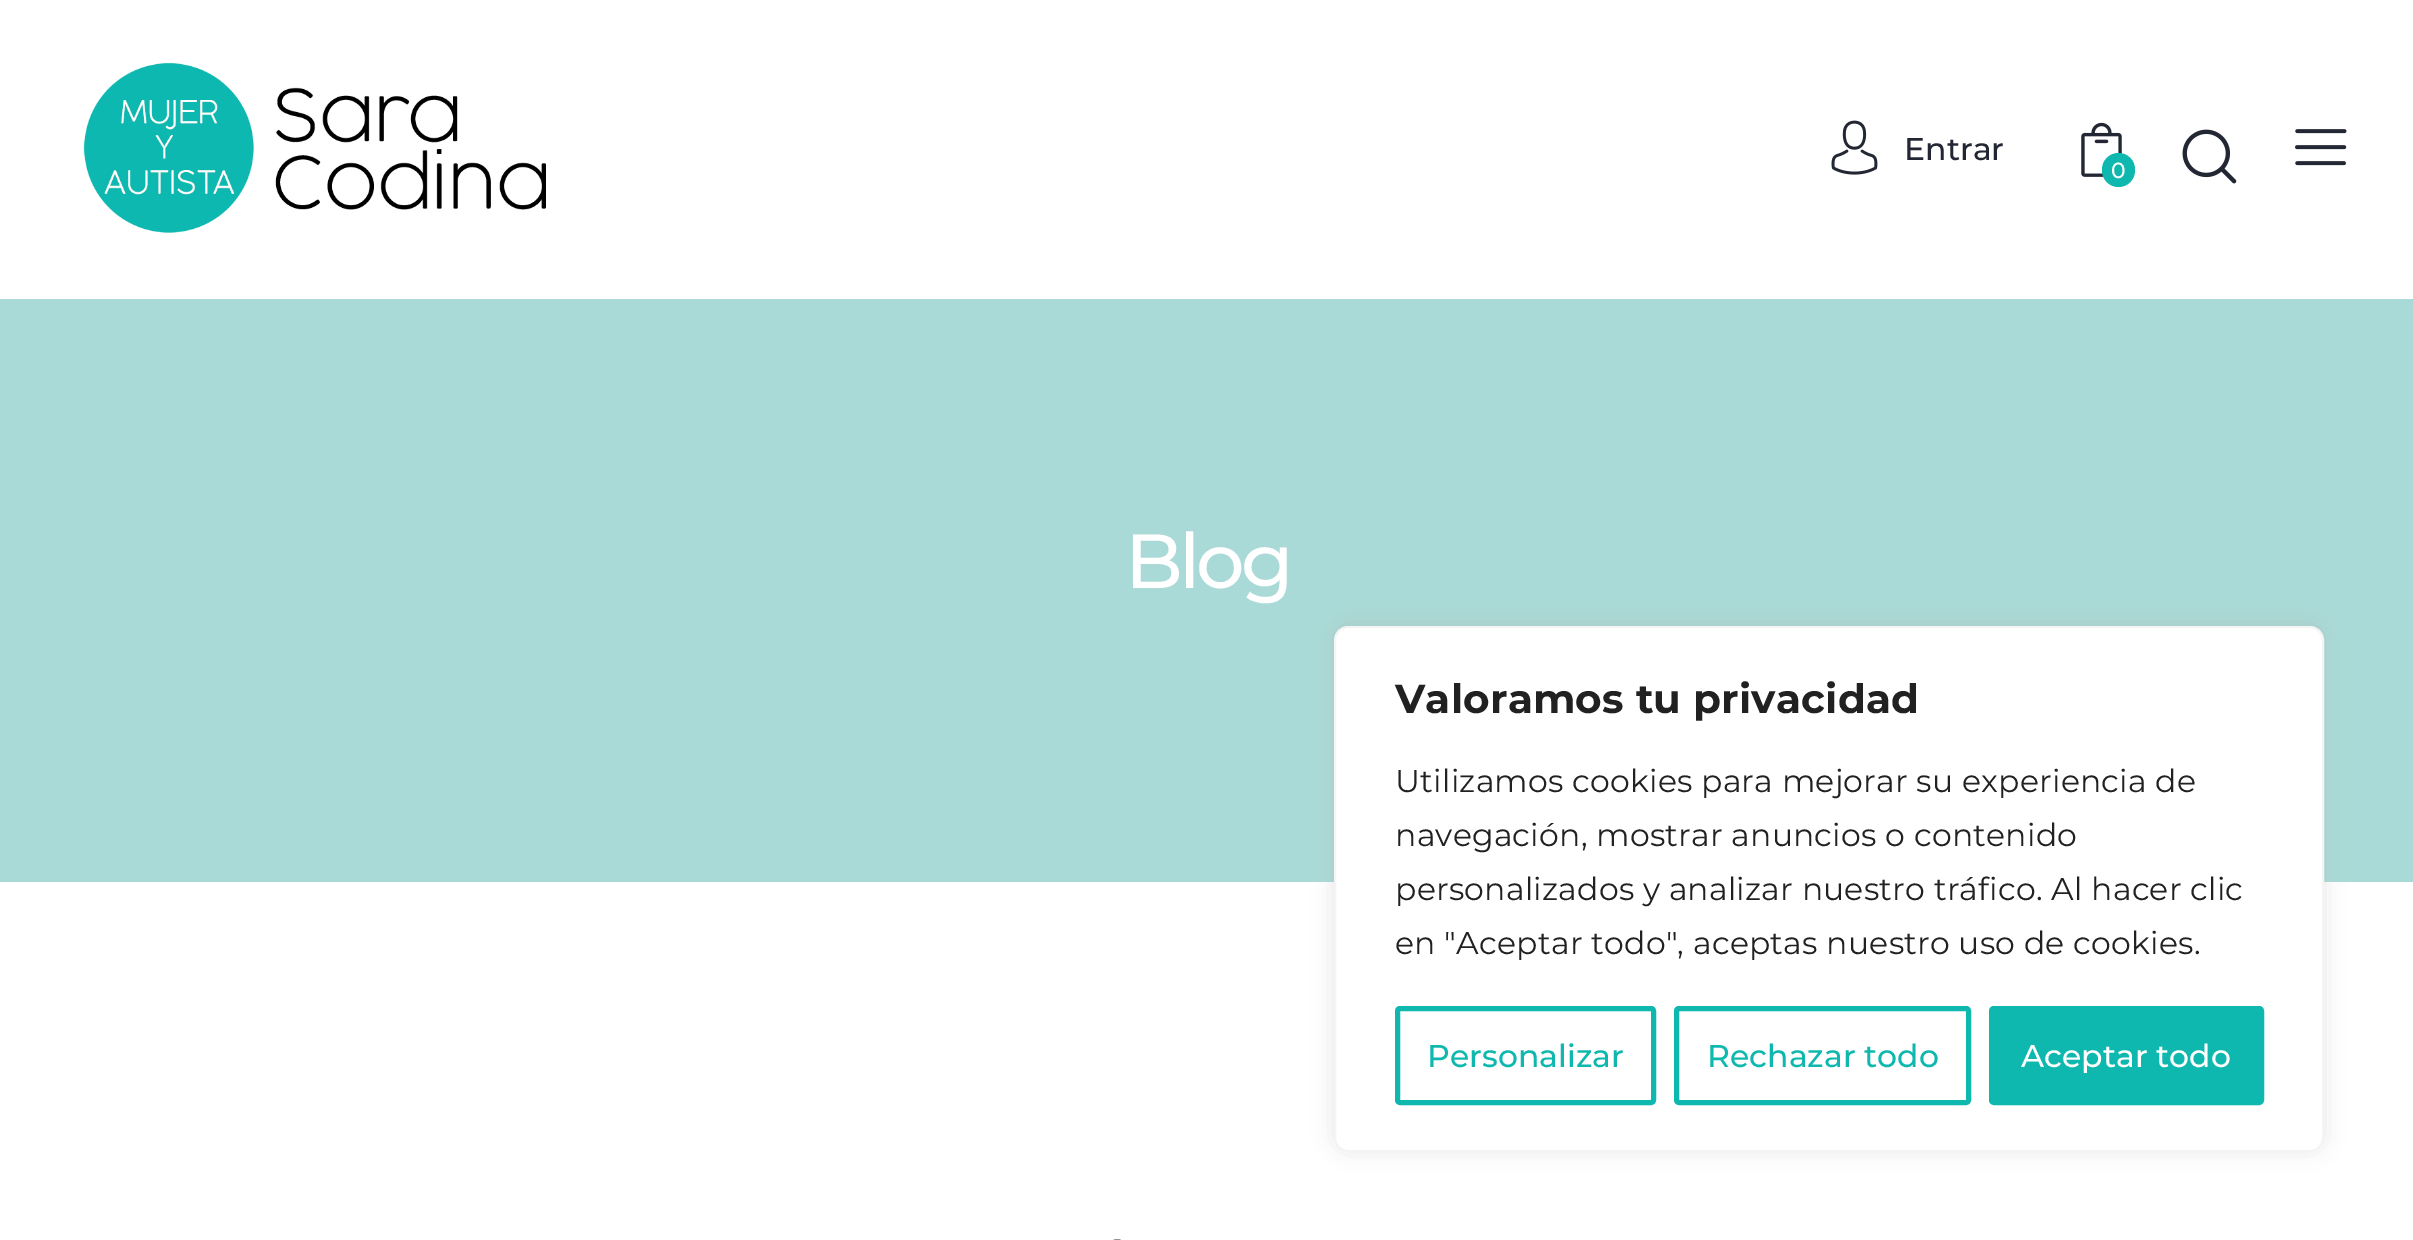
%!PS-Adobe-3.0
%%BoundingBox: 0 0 2413 1240
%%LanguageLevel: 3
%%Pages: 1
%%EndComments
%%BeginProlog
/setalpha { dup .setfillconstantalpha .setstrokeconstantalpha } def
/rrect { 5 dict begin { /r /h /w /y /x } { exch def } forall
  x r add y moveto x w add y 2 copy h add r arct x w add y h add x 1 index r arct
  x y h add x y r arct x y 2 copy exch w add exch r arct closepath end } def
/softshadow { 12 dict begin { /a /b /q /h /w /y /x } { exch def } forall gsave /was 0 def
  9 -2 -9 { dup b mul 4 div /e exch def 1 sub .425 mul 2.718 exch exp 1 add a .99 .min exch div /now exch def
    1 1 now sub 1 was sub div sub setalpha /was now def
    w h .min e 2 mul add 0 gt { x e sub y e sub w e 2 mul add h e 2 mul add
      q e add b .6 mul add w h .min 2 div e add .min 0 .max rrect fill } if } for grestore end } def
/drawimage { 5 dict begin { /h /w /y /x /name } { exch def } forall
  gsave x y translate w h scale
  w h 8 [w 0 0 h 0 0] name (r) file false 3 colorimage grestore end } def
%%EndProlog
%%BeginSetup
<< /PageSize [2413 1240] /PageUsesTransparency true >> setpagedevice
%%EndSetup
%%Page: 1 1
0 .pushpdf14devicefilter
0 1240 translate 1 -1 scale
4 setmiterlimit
1 setgray
0 0 2413 1240 rectfill
(images/1.raw) 83 62 463 171 drawimage
(images/2.raw) 1831 120 47 55 drawimage
(images/3.raw) 2182 129 55 55 drawimage
(images/4.raw) 2295 129 52 37 drawimage
(images/5.raw) 2081 122 41 55 drawimage
0.059 0.722 0.686 setrgbcolor
2102 153 33 34 16.5 rrect fill
0.667 0.855 0.843 setrgbcolor
0 299 2413 583 rectfill
(images/6.raw) 1112 1239 9 1 drawimage
0.675 0.671 0.671 setrgbcolor
1334 623 990 527 14 11 0.3 softshadow
1 setgray
1335 627 988 524 13 rrect gsave fill grestore
0.957 setgray
2 setlinewidth
stroke
0.059 0.722 0.686 setrgbcolor
5 setlinewidth
1397.5 1008.5 256 94 2.5 rrect stroke
1676.5 1008.5 292 94 2.5 rrect stroke
1991.5 1008.5 270 94 2.5 rrect gsave fill grestore
stroke
/Montserrat-Medium [31.5 0 0 -31.5 0 0] selectfont
0.133 0.153 0.2 setrgbcolor
1904 160 moveto (Entrar) show
/Montserrat-Medium [22 0 0 -22 0 0] selectfont
1 setgray
2111 178 moveto (0) show
/Montserrat-Medium [76.5 0 0 -76.5 0 0] selectfont
1125 588 moveto -4 0 (Blog) ashow
/Montserrat-Bold [40.5 0 0 -40.5 0 0] selectfont
0.129 setgray
1395 713 moveto 0.23 0 (Valoramos tu privacidad) ashow
/Montserrat-Regular [31.5 0 0 -31.5 0 0] selectfont
1395 792 moveto 0.23 0 (Utilizamos cookies para mejorar su experiencia de) ashow
1395 846 moveto 0.23 0 (navegación, mostrar anuncios o contenido) ashow
1395 900 moveto 0.23 0 (personalizados y analizar nuestro tráfico. Al hacer clic) ashow
1395 954 moveto 0.23 0 (en "Aceptar todo", aceptas nuestro uso de cookies.) ashow
/Montserrat-Medium [31.5 0 0 -31.5 0 0] selectfont
0.059 0.722 0.686 setrgbcolor
1427 1067 moveto (Personalizar) show
1707 1067 moveto (Rechazar todo) show
1 setgray
2021 1067 moveto (Aceptar todo) show
.poppdf14devicefilter showpage
%%EOF
